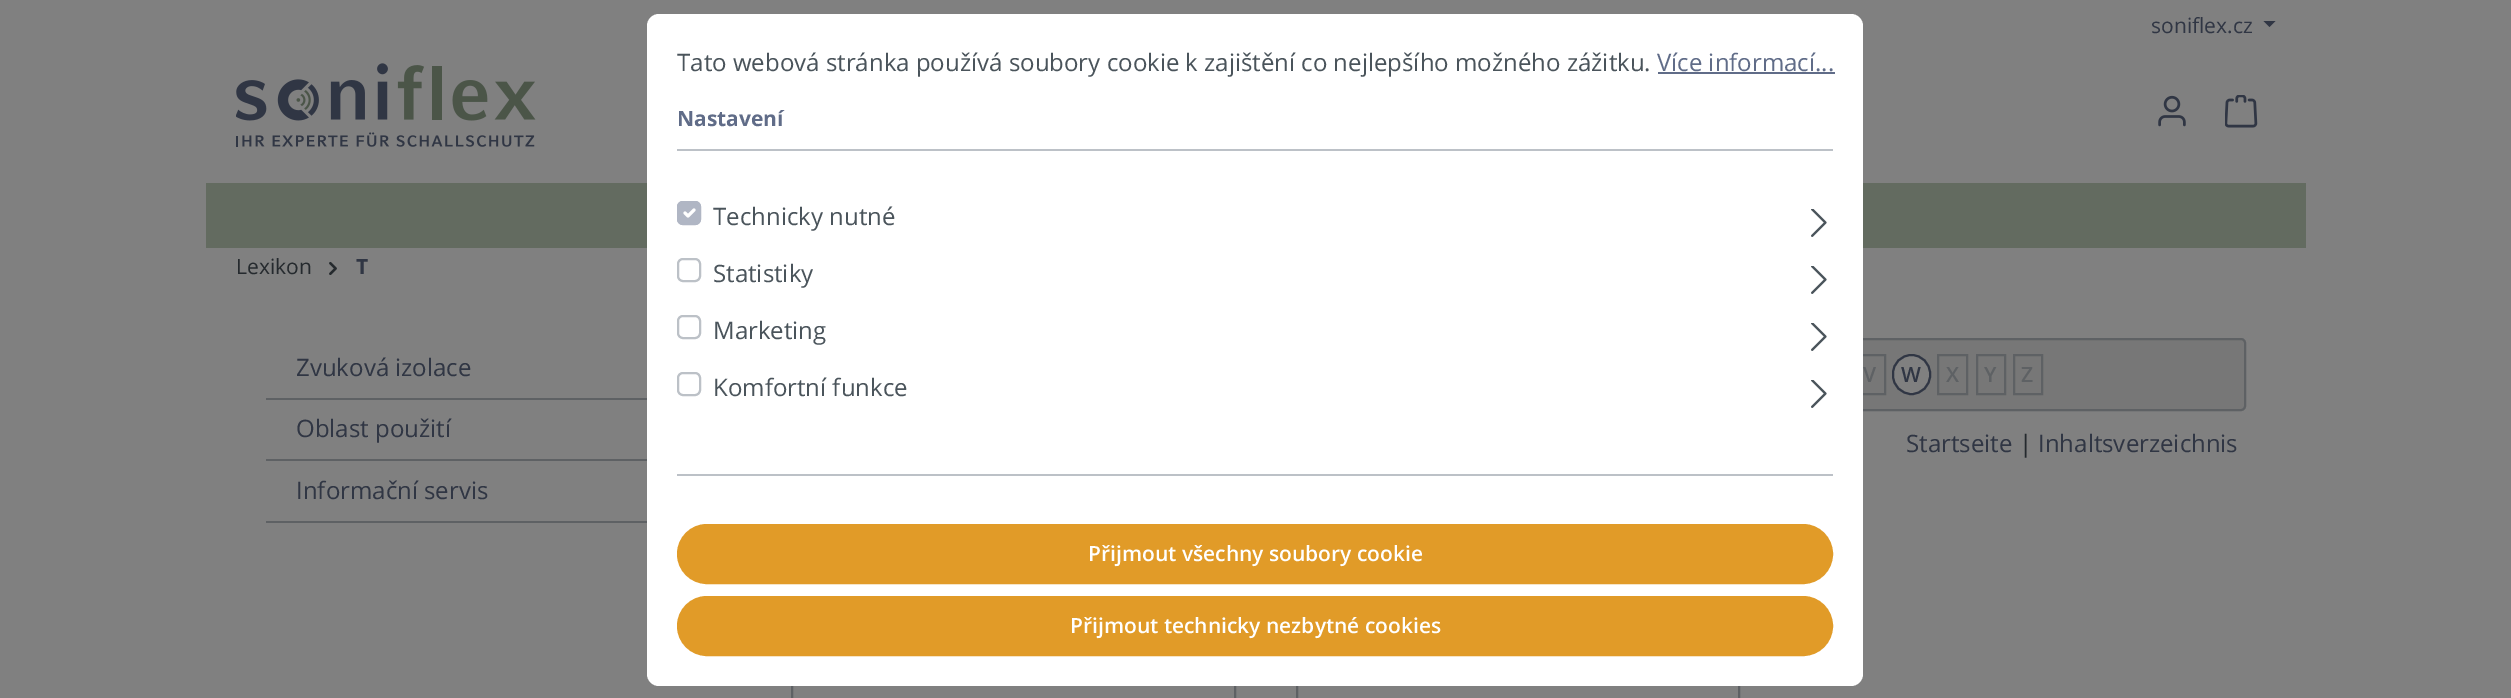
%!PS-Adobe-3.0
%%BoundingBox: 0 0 2511 698
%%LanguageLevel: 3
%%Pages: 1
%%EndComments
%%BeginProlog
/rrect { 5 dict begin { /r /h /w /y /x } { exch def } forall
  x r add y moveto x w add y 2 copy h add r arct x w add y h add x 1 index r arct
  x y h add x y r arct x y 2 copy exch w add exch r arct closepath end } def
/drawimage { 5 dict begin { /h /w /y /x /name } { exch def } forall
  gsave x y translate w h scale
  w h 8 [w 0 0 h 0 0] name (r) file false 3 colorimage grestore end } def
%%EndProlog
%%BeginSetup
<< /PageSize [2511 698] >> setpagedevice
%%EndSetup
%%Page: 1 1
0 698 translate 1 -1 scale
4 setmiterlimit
0.502 setgray
0 0 2511 698 rectfill
0.188 0.212 0.267 setrgbcolor
newpath 2263.5 21 moveto 2275.5 21 lineto 2269.5 27 lineto closepath fill
(images/1.raw) 236 63 300 84 drawimage
(images/2.raw) 2158 95 28 32 drawimage
(images/3.raw) 2225 95 33 33 drawimage
0.388 0.42 0.376 setrgbcolor
206 183 2100 65 rectfill
0.467 setgray
792 339 1453 71 4 rrect gsave fill grestore
0.369 0.38 0.392 setrgbcolor
2 setlinewidth
stroke
1855 355 30 39 rectstroke
792 657 443 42 rectstroke
1297 657 442 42 rectstroke
1 setgray
647 14 1216 672 12 rrect fill
0.737 0.757 0.78 setrgbcolor
677 149 1156 2 rectfill
0.376 0.424 0.533 setrgbcolor
1658 72 177 2 rectfill
0.737 0.757 0.78 setrgbcolor
677 474 1156 2 rectfill
0.69 0.714 0.769 setrgbcolor
677 201 24 24 6 rrect fill
1 setgray
3.1 setlinewidth
1 setlinecap
1 setlinejoin
newpath 685 213 moveto 688 216 lineto 694 210 lineto stroke
0.69 0.714 0.769 setrgbcolor
2 setlinewidth
0 setlinecap
0 setlinejoin
678 202 22 22 5 rrect stroke
(images/4.raw) 1811 209 16 28 drawimage
0.737 0.757 0.78 setrgbcolor
678 259 22 22 5 rrect stroke
(images/4.raw) 1811 266 16 28 drawimage
678 316 22 22 5 rrect stroke
(images/4.raw) 1811 323 16 28 drawimage
678 373 22 22 5 rrect stroke
(images/4.raw) 1811 380 16 28 drawimage
0.882 0.608 0.157 setrgbcolor
678 525 1154 58 29 rrect gsave fill grestore
stroke
678 597 1154 58 29 rrect gsave fill grestore
stroke
(images/5.raw) 329 261 8 14 drawimage
0.369 0.38 0.392 setrgbcolor
266 398 381 2 rectfill
266 459 381 2 rectfill
266 521 381 2 rectfill
0.502 setgray
1893 355 37 39 18.5 rrect gsave fill grestore
0.188 0.212 0.267 setrgbcolor
stroke
0.369 0.38 0.392 setrgbcolor
1938 355 29 39 rectstroke
1977 355 28 39 rectstroke
2014 355 28 39 rectstroke
/OpenSans-Regular [21 0 0 -21 0 0] selectfont
0.188 0.212 0.267 setrgbcolor
2151 33 moveto (soniflex.cz) show
/OpenSans-Regular [24 0 0 -24 0 0] selectfont
0.29 0.329 0.357 setrgbcolor
677 71 moveto (Tato webová stránka používá soubory cookie k zajištění co nejlepšího možného zážitku.) show
0.376 0.424 0.533 setrgbcolor
1657 71 moveto (Více informací...) show
/OpenSans-Bold [21 0 0 -21 0 0] selectfont
677 126 moveto (Nastavení) show
/OpenSans-Regular [24 0 0 -24 0 0] selectfont
0.29 0.329 0.357 setrgbcolor
713 225 moveto (Technicky nutné) show
713 282 moveto (Statistiky) show
713 339 moveto (Marketing) show
713 396 moveto (Komfortní funkce) show
/OpenSans-SemiBold [21 0 0 -21 0 0] selectfont
1 setgray
1088 561 moveto (Přijmout všechny soubory cookie) show
1070 633 moveto (Přijmout technicky nezbytné cookies) show
/OpenSans-Regular [21 0 0 -21 0 0] selectfont
0.145 0.165 0.18 setrgbcolor
236 274 moveto (Lexikon) show
/OpenSans-Bold [21 0 0 -21 0 0] selectfont
0.188 0.212 0.267 setrgbcolor
356 274 moveto (T) show
/OpenSans-Regular [24 0 0 -24 0 0] selectfont
296 376 moveto (Zvuková izolace) show
296 437 moveto (Oblast použití) show
296 499 moveto (Informační servis) show
/OpenSans-SemiBold [21 0 0 -21 0 0] selectfont
0.369 0.38 0.392 setrgbcolor
1863 382 moveto (V) show
0.188 0.212 0.267 setrgbcolor
1901 382 moveto (W) show
0.369 0.38 0.392 setrgbcolor
1946 382 moveto (X) show
1984 382 moveto (Y) show
2021 382 moveto (Z) show
/OpenSans-Regular [24 0 0 -24 0 0] selectfont
0.188 0.212 0.267 setrgbcolor
1906 452 moveto (Startseite) show
0.145 0.165 0.18 setrgbcolor
2019 452 moveto (|) show
0.188 0.212 0.267 setrgbcolor
2038 452 moveto (Inhaltsverzeichnis) show
showpage
%%EOF
